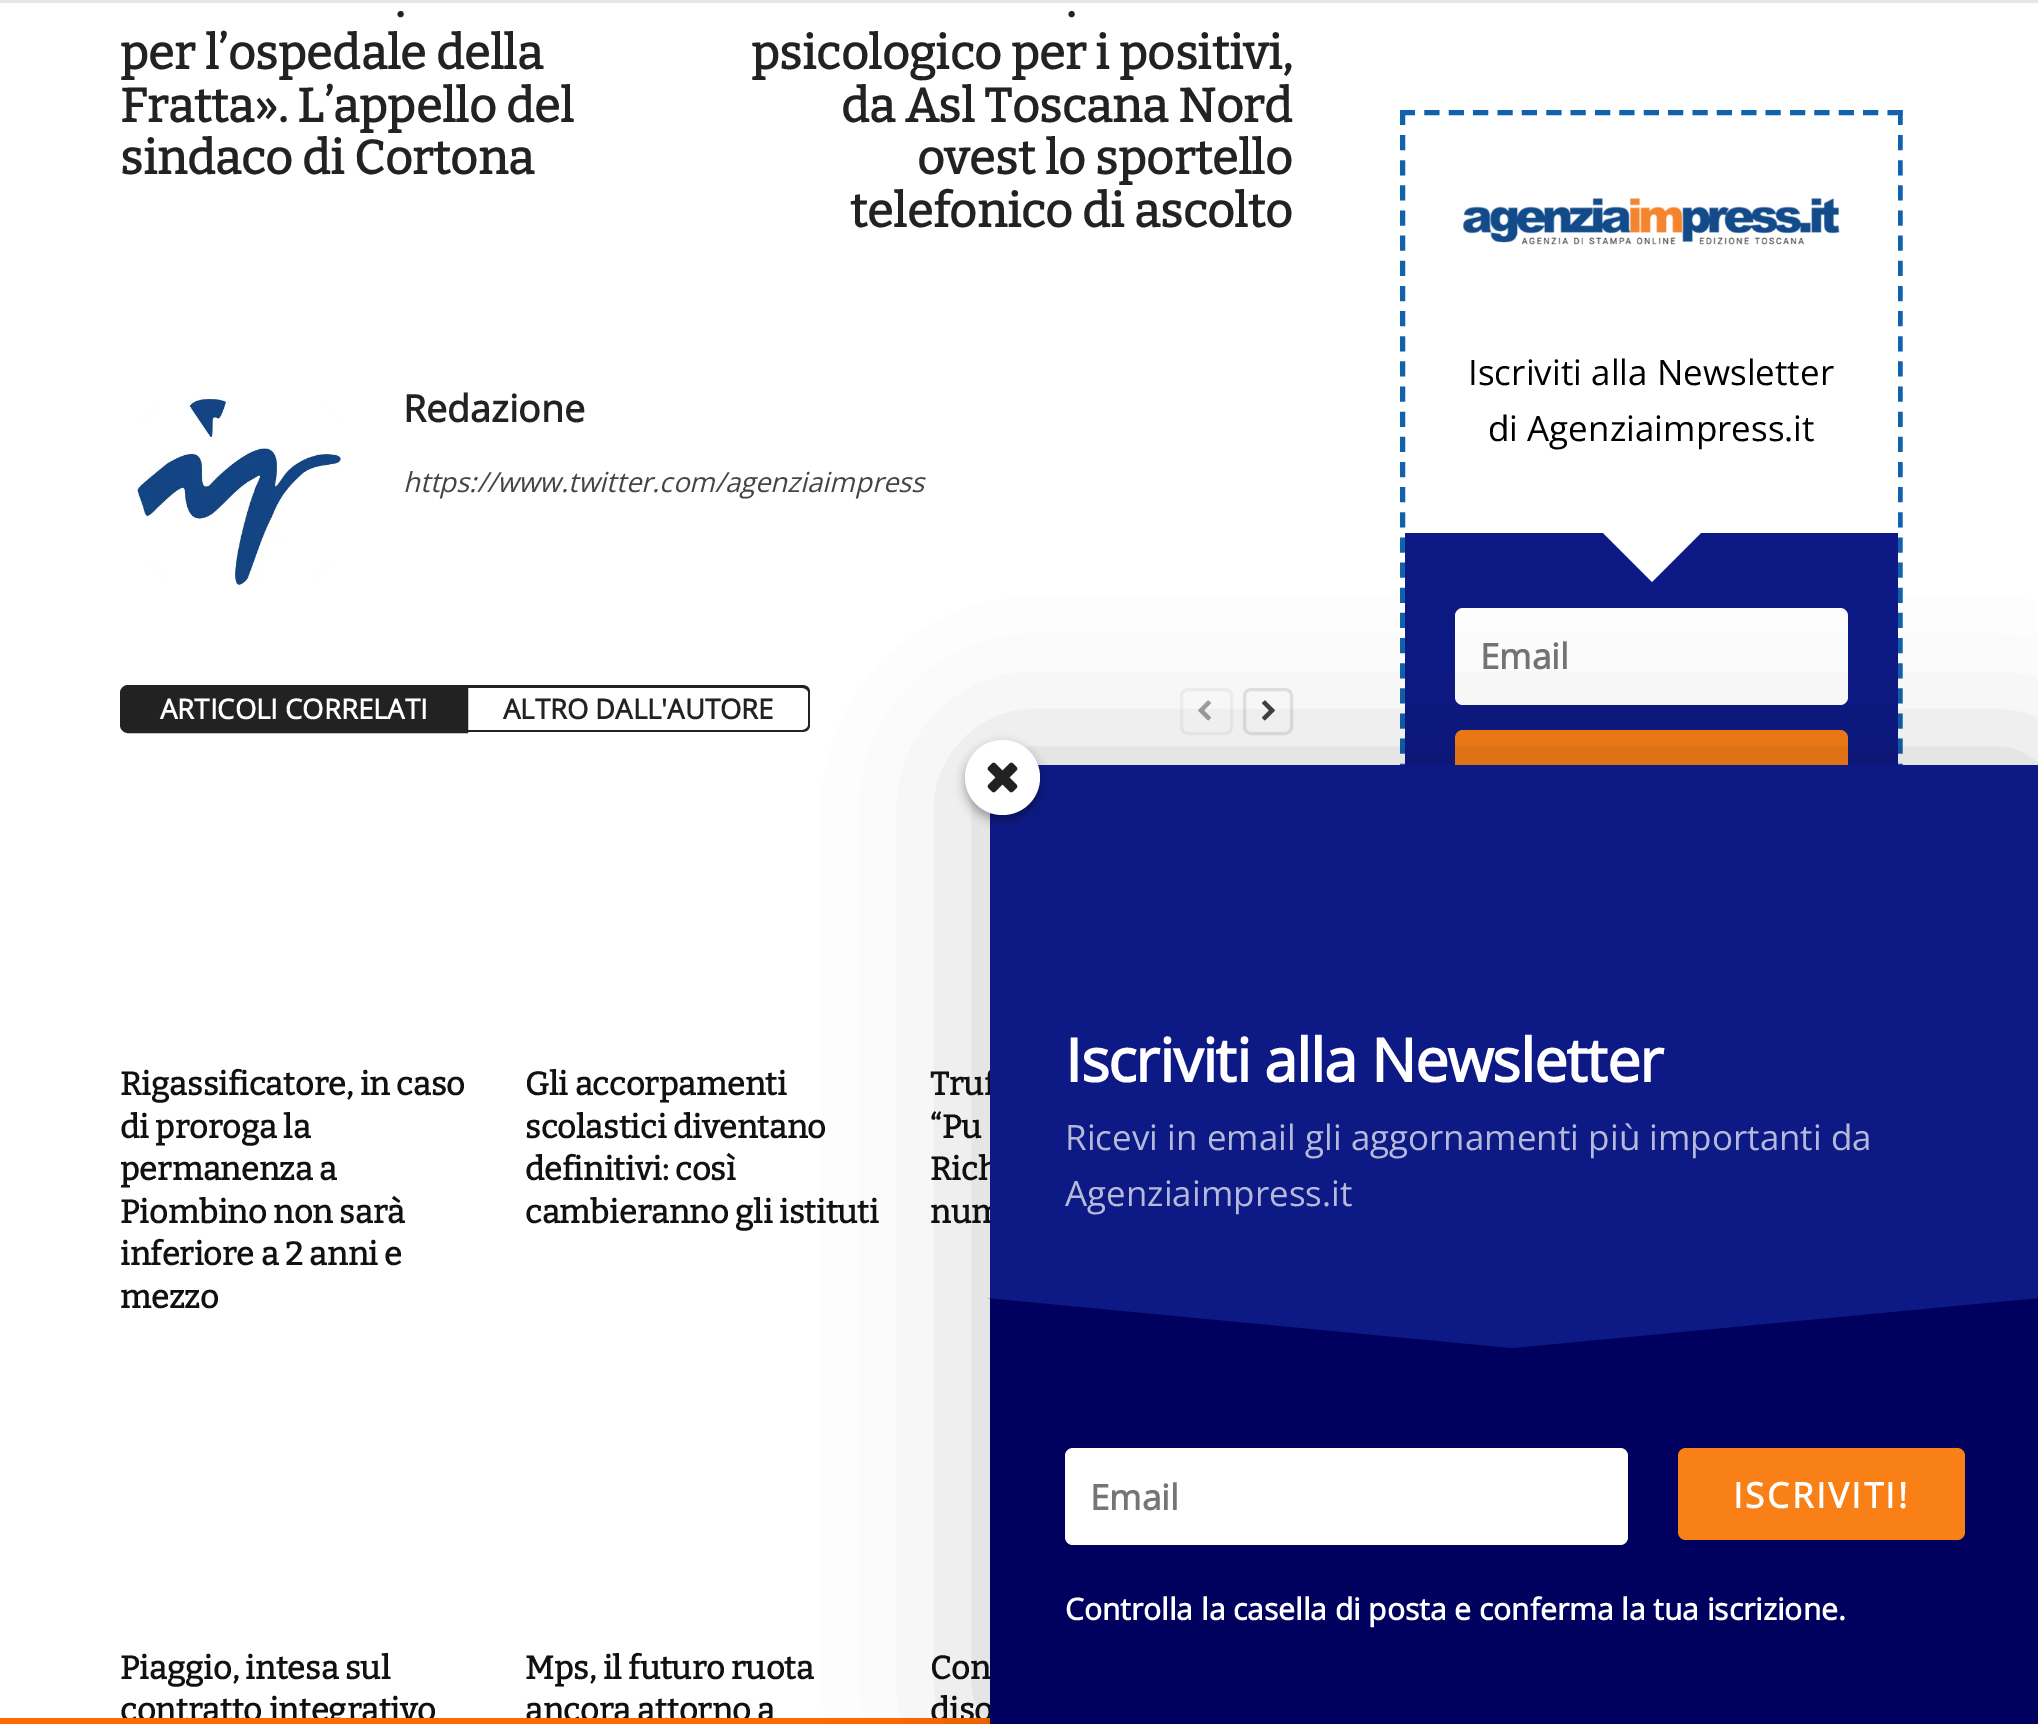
%!PS-Adobe-3.0
%%BoundingBox: 0 0 2038 1724
%%LanguageLevel: 3
%%Pages: 1
%%EndComments
%%BeginProlog
/setalpha { dup .setfillconstantalpha .setstrokeconstantalpha } def
/rrect { 5 dict begin { /r /h /w /y /x } { exch def } forall
  x r add y moveto x w add y 2 copy h add r arct x w add y h add x 1 index r arct
  x y h add x y r arct x y 2 copy exch w add exch r arct closepath end } def
/softshadow { 12 dict begin { /a /b /q /h /w /y /x } { exch def } forall gsave /was 0 def
  9 -2 -9 { dup b mul 4 div /e exch def 1 sub .425 mul 2.718 exch exp 1 add a .99 .min exch div /now exch def
    1 1 now sub 1 was sub div sub setalpha /was now def
    w h .min e 2 mul add 0 gt { x e sub y e sub w e 2 mul add h e 2 mul add
      q e add b .6 mul add w h .min 2 div e add .min 0 .max rrect fill } if } for grestore end } def
/drawimage { 5 dict begin { /h /w /y /x /name } { exch def } forall
  gsave x y translate w h scale
  w h 8 [w 0 0 h 0 0] name (r) file false 3 colorimage grestore end } def
%%EndProlog
%%BeginSetup
<< /PageSize [2038 1724] /PageUsesTransparency true >> setpagedevice
%%EndSetup
%%Page: 1 1
0 .pushpdf14devicefilter
0 1724 translate 1 -1 scale
4 setmiterlimit
1 setgray
0 0 2038 1724 rectfill
0.902 setgray
0 0 2038 3 rectfill
(images/1.raw) 134 398 207 188 drawimage
0.133 setgray
newpath 128 686.5 moveto 466.5 686.5 lineto 466.5 731.5 lineto 128 731.5 lineto 124.5 731.5 121.5 728.5 121.5 725 curveto 121.5 693 lineto 121.5 689.5 124.5 686.5 128 686.5 curveto closepath gsave fill grestore
3 setlinewidth
stroke
newpath 468 685 moveto 802 685 lineto 807 685 810 688 810 692 curveto 810 725 lineto 810 729 807 732 802 732 curveto 468 732 lineto closepath 468 688 moveto 802 688 lineto 805 688 808 690 808 692 curveto 808 725 lineto 808 728 805 730 802 730 curveto 468 730 lineto closepath eofill
0.953 setgray
1181.5 689.5 50 44 6.5 rrect stroke
(images/2.raw) 1198 700 13 21 drawimage
0.902 setgray
1244.5 689.5 47 44 6.5 rrect stroke
(images/3.raw) 1262 700 13 21 drawimage
0.063 0.384 0.678 setrgbcolor
5 setlinewidth
[15 9.38] 0 setdash
newpath 1400 112.5 moveto 1902.5 112.5 lineto stroke
[15 10.15] 0 setdash
newpath 1900 110 moveto 1900 1005 lineto stroke
newpath 1402.5 110 moveto 1402.5 1005 lineto stroke
1 setgray
1897 115 1 413 rectfill
(images/4.raw) 1463 198 377 47 drawimage
0.051 0.098 0.518 setrgbcolor
1405 533 493 232 rectfill
1 setgray
newpath 1602 532 moveto 1702 532 lineto 1652 582 lineto closepath fill
1455 608 393 97 8 rrect fill
0.976 0.498 0.09 setrgbcolor
1455 730 393 85 8 rrect fill
/Bitter-Bold [47.5 0 0 -47.5 0 0] selectfont
0.133 setgray
395 17 moveto (.) show
120 69 moveto (per l’ospedale della) show
120 122 moveto (Fratta». L’appello del) show
120 174 moveto (sindaco di Cortona) show
1066 17 moveto (.) show
751 69 moveto (psicologico per i positivi,) show
841 122 moveto (da Asl Toscana Nord) show
917 174 moveto (ovest lo sportello) show
850 227 moveto (telefonico di ascolto) show
/OpenSans-Bold [37.5 0 0 -37.5 0 0] selectfont
403 422 moveto (Redazione) show
/OpenSans-Italic [27.5 0 0 -27.5 0 0] selectfont
0.267 setgray
403 492 moveto (https://www.twitter.com/agenziaimpress) show
/OpenSans-Bold [27.5 0 0 -27.5 0 0] selectfont
1 setgray
160 719 moveto (ARTICOLI CORRELATI) show
0.133 setgray
503 719 moveto (ALTRO DALL'AUTORE) show
/Bitter-Bold [32.5 0 0 -32.5 0 0] selectfont
0.067 setgray
120 1095 moveto (Rigassificatore, in caso) show
120 1138 moveto (di proroga la) show
120 1180 moveto (permanenza a) show
120 1223 moveto (Piombino non sarà) show
120 1265 moveto (inferiore a 2 anni e) show
120 1308 moveto (mezzo) show
525 1095 moveto (Gli accorpamenti) show
525 1138 moveto (scolastici diventano) show
525 1180 moveto (definitivi: così) show
525 1223 moveto (cambieranno gli istituti) show
930 1095 moveto (Truf) show
930 1138 moveto (“Pu) show
930 1180 moveto (Rich) show
930 1223 moveto (num) show
120 1679 moveto (Piaggio, intesa sul) show
120 1721 moveto (contratto integrativo) show
525 1679 moveto (Mps, il futuro ruota) show
525 1721 moveto (ancora attorno a) show
930 1679 moveto (Con) show
930 1721 moveto (diso) show
/OpenSans-Regular [35 0 0 -35 0 0] selectfont
0 setgray
1468 385 moveto (Iscriviti alla Newsletter) show
1488 441 moveto (di Agenziaimpress.it) show
/OpenSans-Bold [35 0 0 -35 0 0] selectfont
0.459 setgray
1480 669 moveto (Email) show
1 0.412 0 setrgbcolor
0 1718 990 6 rectfill
0 setgray
990 765 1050 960 0 75 0.2 softshadow
0 0 0.369 setrgbcolor
990 1298 1048 426 rectfill
0.051 0.098 0.518 setrgbcolor
newpath 988 1298 moveto 1512 1348 lineto 2038 1298 lineto closepath fill
990 765 1048 533 rectfill
0 setgray
965 745 75 75 37.5 5 0.34 softshadow
1 setgray
newpath 1002.5 777.5 37.5 0 360 arc closepath fill
(images/5.raw) 987 762 31 31 drawimage
0.976 0.498 0.09 setrgbcolor
1678 1448 287 92 8 rrect fill
1 setgray
1733 1508 moveto 2.5 0 (ISCRIVITI!) ashow
/OpenSans-Bold [30 0 0 -30 0 0] selectfont
1065 1620 moveto (Controlla la casella di posta e conferma la tua iscrizione.) show
1065 1448 563 97 8 rrect fill
/OpenSans-Bold [35 0 0 -35 0 0] selectfont
0.459 setgray
1090 1510 moveto (Email) show
/OpenSans-Regular [35 0 0 -35 0 0] selectfont
0.714 0.729 0.855 setrgbcolor
1065 1206 moveto (Agenziaimpress.it) show
1065 1150 moveto (Ricevi in email gli aggornamenti più importanti da) show
/OpenSans-Bold [60 0 0 -60 0 0] selectfont
1 setgray
1065 1082 moveto -1.2 0 (Iscriviti alla Newsletter) ashow
.poppdf14devicefilter showpage
%%EOF
